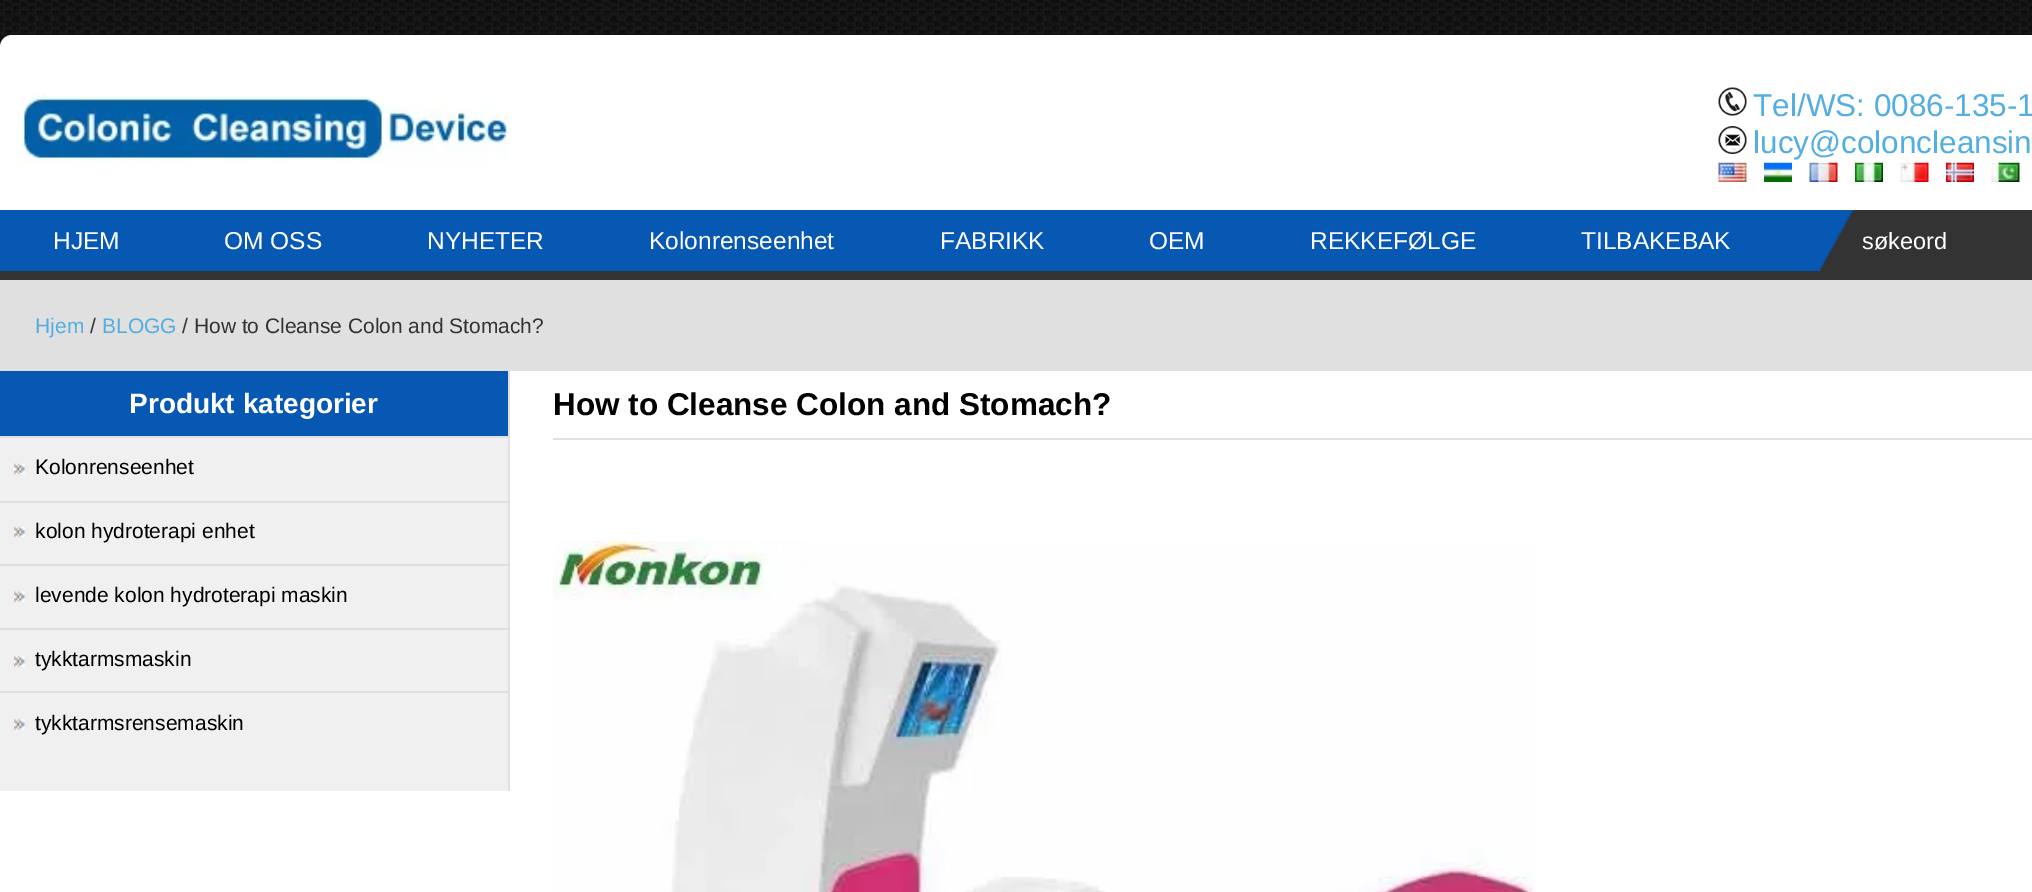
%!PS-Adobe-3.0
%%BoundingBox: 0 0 2032 892
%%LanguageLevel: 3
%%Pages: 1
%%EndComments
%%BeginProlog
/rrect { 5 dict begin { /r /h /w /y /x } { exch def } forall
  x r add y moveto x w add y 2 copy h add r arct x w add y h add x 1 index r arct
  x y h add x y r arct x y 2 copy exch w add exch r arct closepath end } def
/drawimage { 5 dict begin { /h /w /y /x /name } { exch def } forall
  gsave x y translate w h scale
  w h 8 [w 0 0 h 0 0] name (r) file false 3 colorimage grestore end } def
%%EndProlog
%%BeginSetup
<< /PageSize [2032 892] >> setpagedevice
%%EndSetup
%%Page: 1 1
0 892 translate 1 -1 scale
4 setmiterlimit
1 setgray
0 0 2032 892 rectfill
(images/1.raw) 0 0 2032 47 drawimage
0 35 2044 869 12 rrect fill
(images/2.raw) 17 94 492 71 drawimage
(images/3.raw) 1718 87 29 29 drawimage
(images/4.raw) 1718 126 29 28 drawimage
(images/5.raw) 1718 162 29 20 drawimage
(images/6.raw) 1764 162 28 20 drawimage
(images/7.raw) 1809 162 29 20 drawimage
(images/8.raw) 1855 162 28 20 drawimage
(images/9.raw) 1900 162 29 20 drawimage
(images/10.raw) 1946 162 28 20 drawimage
(images/11.raw) 1991 162 29 20 drawimage
0.027 0.345 0.702 setrgbcolor
0 210 1854 61 rectfill
0.2 setgray
0 271 2032 9 rectfill
(images/12.raw) 1820 210 212 61 drawimage
0.878 setgray
0 280 2032 91 rectfill
0.941 setgray
0 438 508 353 rectfill
0.878 setgray
508 371 2 420 rectfill
0.027 0.345 0.702 setrgbcolor
0 371 508 65 rectfill
0.875 setgray
0 436 508 2 rectfill
(images/13.raw) 14 463 11 12 drawimage
0 501 508 2 rectfill
(images/13.raw) 14 526 11 12 drawimage
0 564 508 2 rectfill
(images/14.raw) 14 591 11 11 drawimage
0 628 508 2 rectfill
(images/15.raw) 14 656 11 11 drawimage
0 691 508 2 rectfill
(images/15.raw) 14 719 11 11 drawimage
0.878 setgray
553 438 1479 2 rectfill
(images/16.raw) 553 540 982 352 drawimage
/LiberationSans-Regular [31.5 0 0 -31.5 0 0] selectfont
0.325 0.682 0.882 setrgbcolor
1753 116 moveto (Tel/WS: 0086-135-1) show
1753 153 moveto (lucy@coloncleansin) show
/LiberationSans-Regular [24.5 0 0 -24.5 0 0] selectfont
1 setgray
53 249 moveto (HJEM) show
224 249 moveto (OM OSS) show
427 249 moveto (NYHETER) show
649 249 moveto (Kolonrenseenhet) show
940 249 moveto (FABRIKK) show
1149 249 moveto (OEM) show
1310 249 moveto (REKKEFØLGE) show
1581 249 moveto (TILBAKEBAK) show
/LiberationSans-Regular [23.5 0 0 -23.5 0 0] selectfont
1862 249 moveto (søkeord) show
/LiberationSans-Regular [21 0 0 -21 0 0] selectfont
0.325 0.682 0.882 setrgbcolor
35 333 moveto (Hjem) show
0.2 setgray
90 333 moveto (/) show
0.325 0.682 0.882 setrgbcolor
102 333 moveto (BLOGG) show
0.2 setgray
182 333 moveto (/ How to Cleanse Colon and Stomach?) show
/LiberationSans-Bold [28 0 0 -28 0 0] selectfont
1 setgray
129 413 moveto (Produkt kategorier) show
/LiberationSans-Regular [21 0 0 -21 0 0] selectfont
0 setgray
35 474 moveto (Kolonrenseenhet) show
35 538 moveto (kolon hydroterapi enhet) show
35 602 moveto (levende kolon hydroterapi maskin) show
35 666 moveto (tykktarmsmaskin) show
35 730 moveto (tykktarmsrensemaskin) show
/LiberationSans-Bold [31.5 0 0 -31.5 0 0] selectfont
553 415 moveto (How to Cleanse Colon and Stomach?) show
showpage
%%EOF
